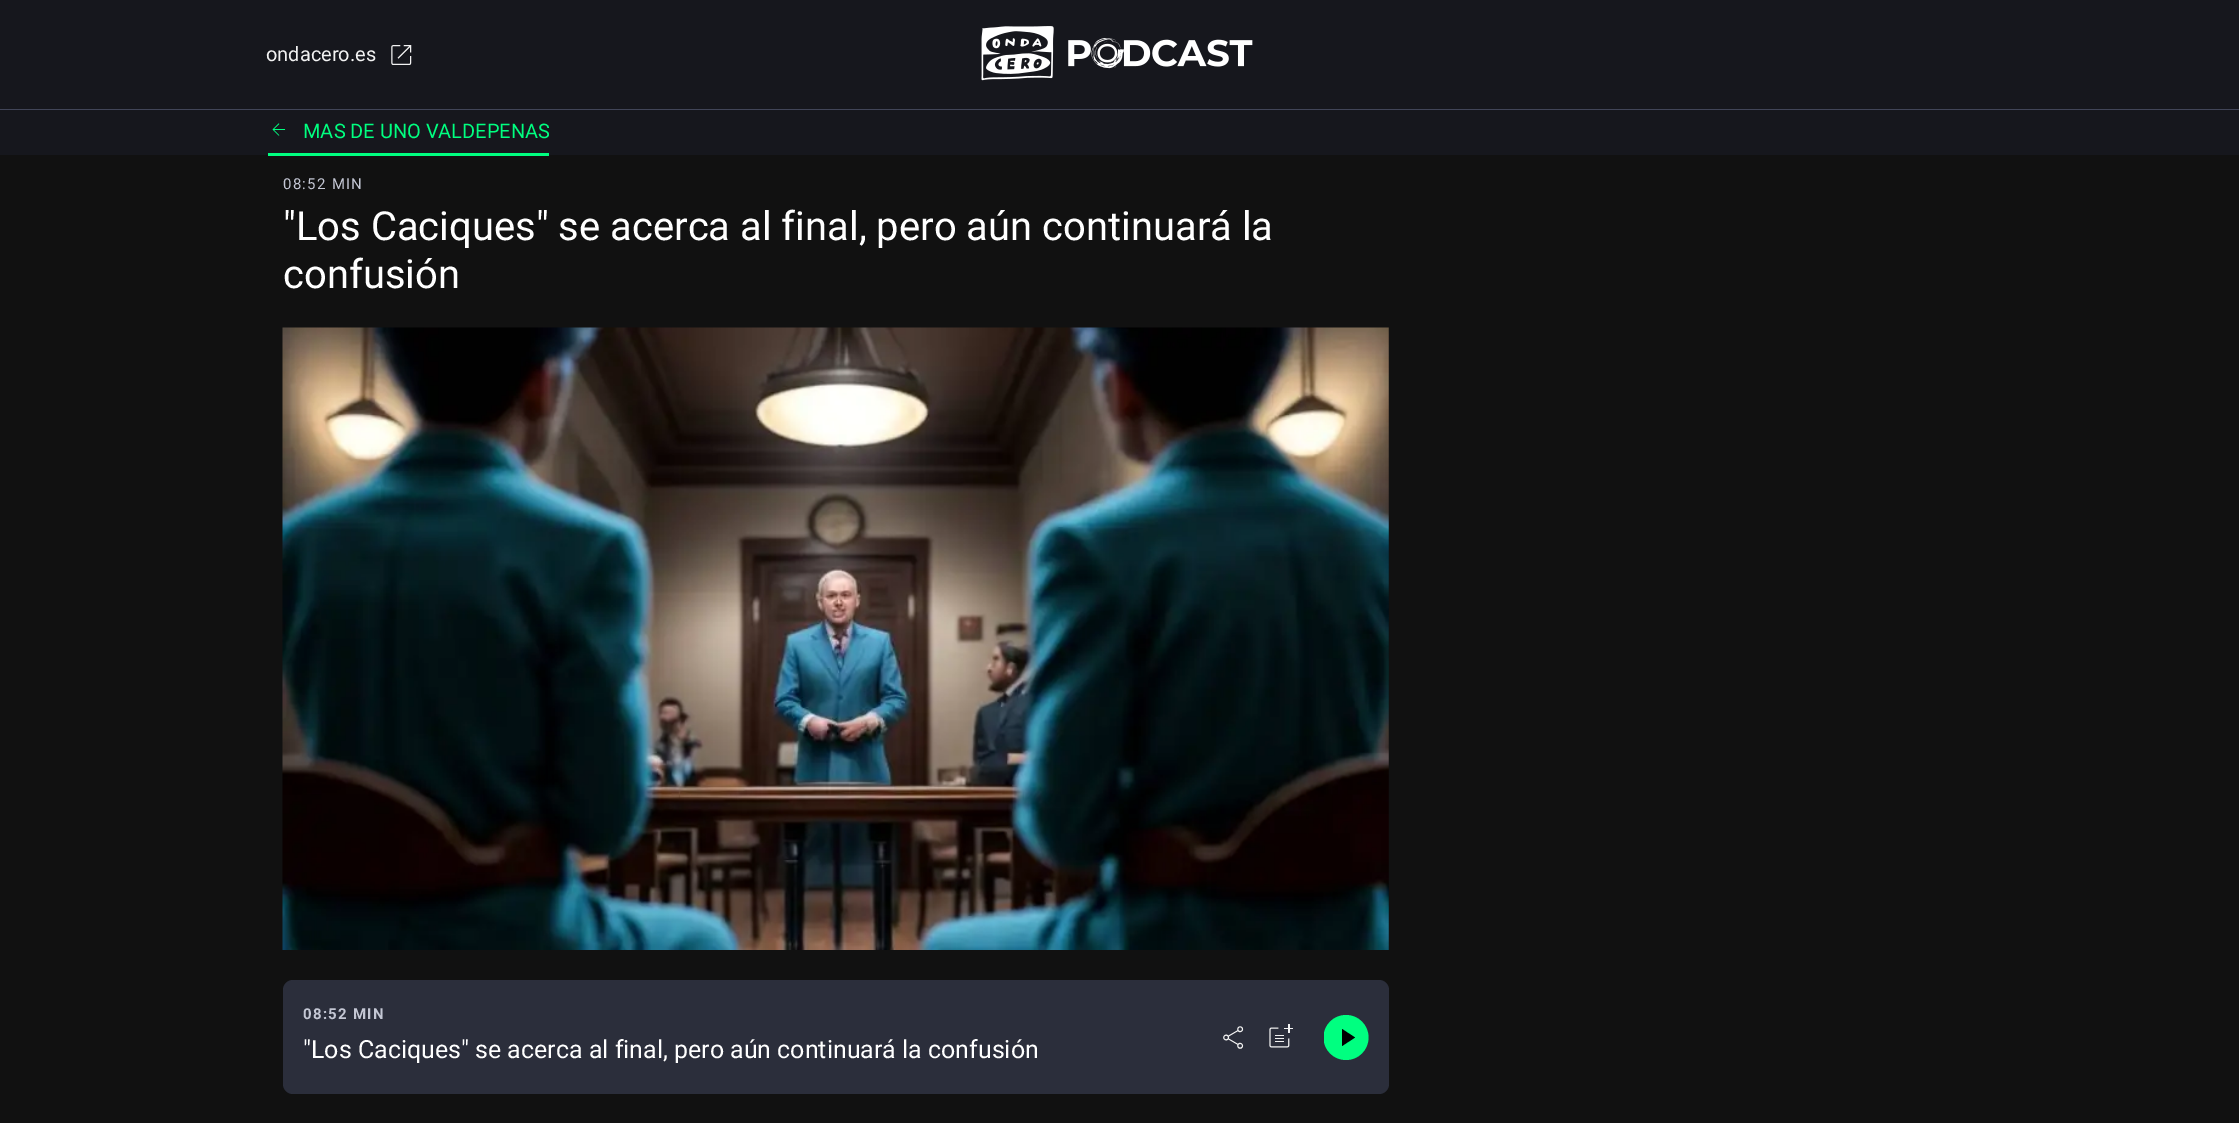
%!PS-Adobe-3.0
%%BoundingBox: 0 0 2239 1123
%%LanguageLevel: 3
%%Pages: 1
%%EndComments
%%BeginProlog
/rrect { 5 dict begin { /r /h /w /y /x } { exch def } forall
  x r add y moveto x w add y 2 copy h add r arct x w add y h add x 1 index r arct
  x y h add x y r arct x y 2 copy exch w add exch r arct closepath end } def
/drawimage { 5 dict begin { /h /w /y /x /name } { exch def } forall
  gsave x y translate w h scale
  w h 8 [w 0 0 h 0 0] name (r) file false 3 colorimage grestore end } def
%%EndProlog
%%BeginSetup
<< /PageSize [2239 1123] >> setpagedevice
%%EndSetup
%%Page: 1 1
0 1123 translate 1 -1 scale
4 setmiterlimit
0.067 setgray
0 0 2239 1123 rectfill
0.086 0.09 0.114 setrgbcolor
0 0 2239 109 rectfill
0.255 0.271 0.345 setrgbcolor
0 109 2239 1 rectfill
(images/1.raw) 391 45 21 20 drawimage
(images/2.raw) 981 26 272 55 drawimage
0.086 0.09 0.114 setrgbcolor
0 110 2239 45 rectfill
0 1 0.502 setrgbcolor
268 153 281 3 rectfill
(images/3.raw) 272 123 14 13 drawimage
(images/4.raw) 282 327 1107 623 drawimage
0.169 0.18 0.231 setrgbcolor
283 980 1106 114 10 rrect fill
(images/5.raw) 1223 1026 21 23 drawimage
(images/6.raw) 1269 1024 24 24 drawimage
gsave
1324 1015 45 45 rectclip
0 1 0.502 setrgbcolor
newpath 1346 1037.5 22.5 0 360 arc closepath fill
grestore
0 setgray
newpath 1342 1029 moveto 1342 1046 lineto 1355 1037.5 lineto closepath fill
/Roboto-Regular [20 0 0 -20 0 0] selectfont
0.949 setgray
266 61 moveto (ondacero.es) show
0 1 0.502 setrgbcolor
303 138 moveto (MAS DE UNO VALDEPENAS) show
/Roboto-Regular [15 0 0 -15 0 0] selectfont
0.769 0.78 0.831 setrgbcolor
283 189 moveto 1.25 0 (08:52 MIN) ashow
/Roboto-Regular [40 0 0 -40 0 0] selectfont
1 setgray
283 240 moveto ("Los Caciques" se acerca al final, pero aún continuará la) show
283 288 moveto (confusión) show
/Roboto-Bold [15 0 0 -15 0 0] selectfont
0.769 0.78 0.831 setrgbcolor
303 1019 moveto 1.25 0 (08:52 MIN) ashow
/Roboto-Regular [25 0 0 -25 0 0] selectfont
1 setgray
303 1058 moveto ("Los Caciques" se acerca al final, pero aún continuará la confusión) show
showpage
%%EOF
